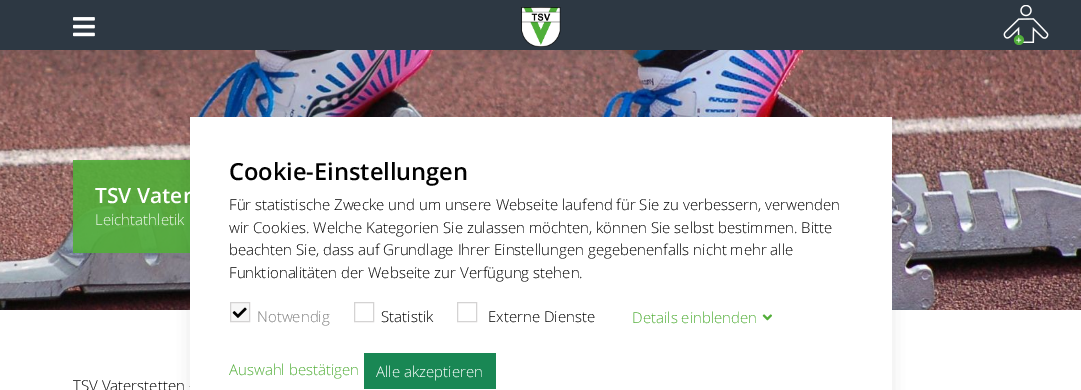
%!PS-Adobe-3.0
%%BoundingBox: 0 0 1081 390
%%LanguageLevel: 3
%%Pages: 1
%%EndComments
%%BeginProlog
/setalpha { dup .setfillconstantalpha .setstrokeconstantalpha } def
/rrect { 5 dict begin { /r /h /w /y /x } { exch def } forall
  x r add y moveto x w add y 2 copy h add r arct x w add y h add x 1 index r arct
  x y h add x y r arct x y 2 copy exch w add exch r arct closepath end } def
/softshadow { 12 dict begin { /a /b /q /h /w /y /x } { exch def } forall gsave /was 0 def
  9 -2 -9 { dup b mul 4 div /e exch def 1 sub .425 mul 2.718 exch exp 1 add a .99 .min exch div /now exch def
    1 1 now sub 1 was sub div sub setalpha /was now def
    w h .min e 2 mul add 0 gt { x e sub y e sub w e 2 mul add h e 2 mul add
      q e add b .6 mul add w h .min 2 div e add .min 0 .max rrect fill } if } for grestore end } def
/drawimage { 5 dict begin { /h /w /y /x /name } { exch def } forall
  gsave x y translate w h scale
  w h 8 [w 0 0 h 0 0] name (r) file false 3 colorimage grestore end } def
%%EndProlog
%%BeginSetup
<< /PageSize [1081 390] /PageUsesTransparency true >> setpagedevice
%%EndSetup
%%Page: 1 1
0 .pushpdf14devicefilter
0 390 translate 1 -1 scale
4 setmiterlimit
1 setgray
0 0 1081 390 rectfill
0.176 0.22 0.263 setrgbcolor
0 0 1081 50 rectfill
(images/1.raw) 73 17 22 20 drawimage
(images/2.raw) 521 7 40 40 drawimage
(images/3.raw) 1003 5 46 40 drawimage
(images/4.raw) 0 50 1081 260 drawimage
0.9 setalpha
0.322 0.682 0.224 setrgbcolor
73 160 117 93 rectfill
1 setalpha
0 setgray
199 126 684 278 0 10 0.25 softshadow
/OpenSans-SemiBold [21 0 0 -21 0 0] selectfont
1 setgray
95 203 moveto (TSV Vater) show
/OpenSans-Light [15 0 0 -15 0 0] selectfont
0.933 0.969 0.925 setrgbcolor
95 225 moveto (Leichtathletik) show
0 setgray
73 391 moveto (TSV Vaterstetten e) show
1 setgray
190 117 702 273 rectfill
/OpenSans-SemiBold [23.6 0 0 -23.6 0 0] selectfont
0 setgray
229 180 moveto (Cookie-Einstellungen) show
/OpenSans-Light [15 0 0 -15 0 0] selectfont
229 210 moveto (Für statistische Zwecke und um unsere Webseite laufend für Sie zu verbessern, verwenden) show
229 233 moveto (wir Cookies. Welche Kategorien Sie zulassen möchten, können Sie selbst bestimmen. Bitte) show
229 255 moveto (beachten Sie, dass auf Grundlage Ihrer Einstellungen gegebenenfalls nicht mehr alle) show
229 278 moveto (Funktionalitäten der Webseite zur Verfügung stehen.) show
0.969 setgray
newpath 230.5 302.5 moveto 249.5 302.5 lineto 249.5 321.5 lineto 230.5 321.5 lineto closepath gsave fill grestore
0.831 0.827 0.827 setrgbcolor
stroke
(images/5.raw) 232 307 15 11 drawimage
0.502 setgray
257 322 moveto (Notwendig) show
0.831 0.827 0.827 setrgbcolor
354.5 302.5 19 19 rectstroke
0 setgray
381 322 moveto (Statistik) show
0.831 0.827 0.827 setrgbcolor
457.5 302.5 19 19 rectstroke
0 setgray
488 322 moveto (Externe Dienste) show
0.322 0.682 0.224 setrgbcolor
632 323 moveto (Details einblenden) show
(images/6.raw) 762 314 10 7 drawimage
229 375 moveto (Auswahl bestätigen) show
0.098 0.529 0.329 setrgbcolor
364 353 132 36 rectfill
1 setgray
376 377 moveto (Alle akzeptieren) show
.poppdf14devicefilter showpage
%%EOF
